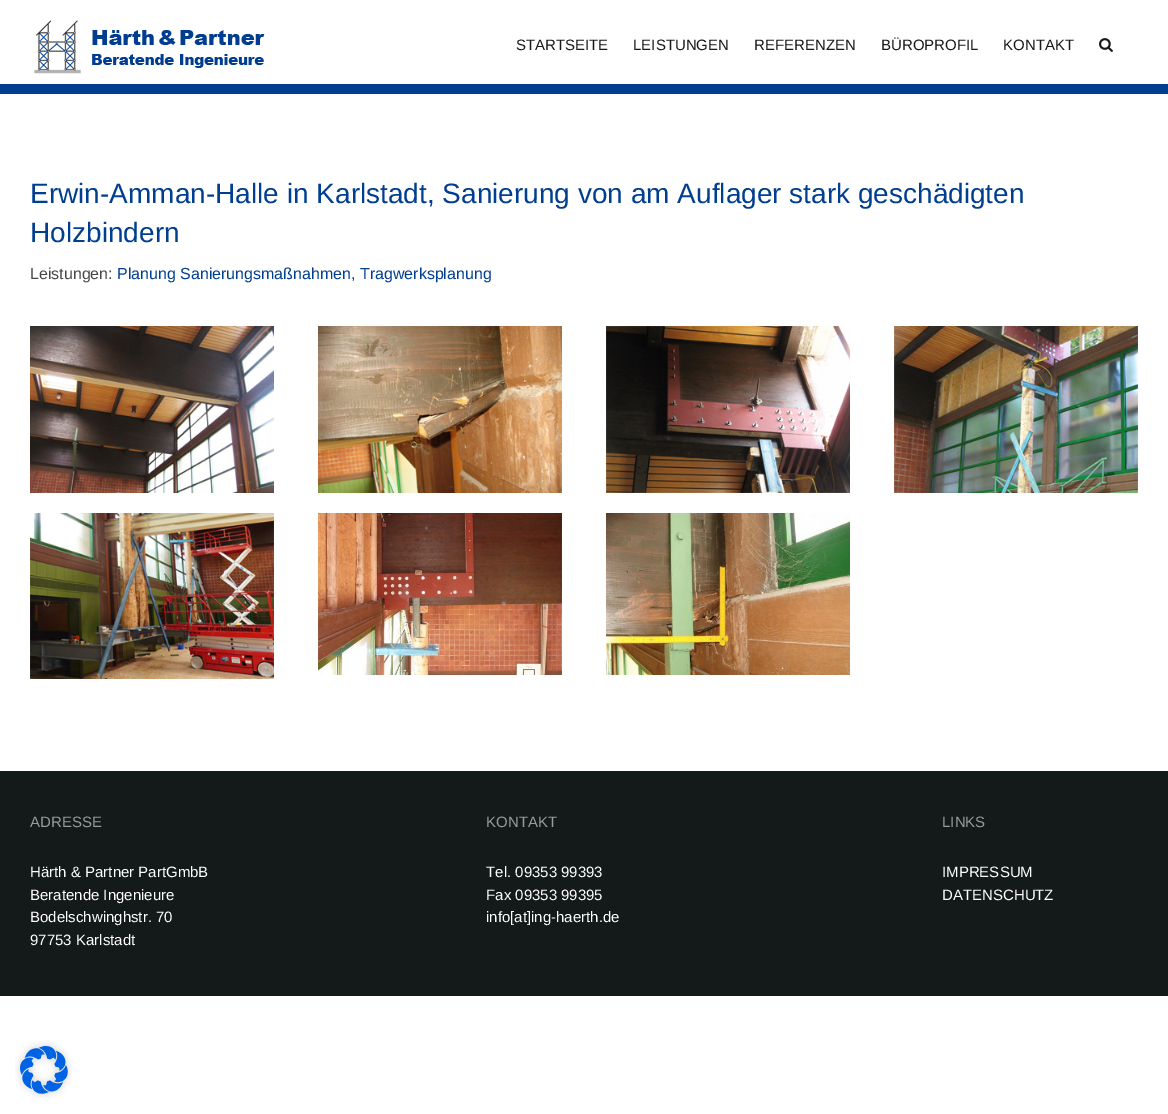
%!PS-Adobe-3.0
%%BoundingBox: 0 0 1168 1114
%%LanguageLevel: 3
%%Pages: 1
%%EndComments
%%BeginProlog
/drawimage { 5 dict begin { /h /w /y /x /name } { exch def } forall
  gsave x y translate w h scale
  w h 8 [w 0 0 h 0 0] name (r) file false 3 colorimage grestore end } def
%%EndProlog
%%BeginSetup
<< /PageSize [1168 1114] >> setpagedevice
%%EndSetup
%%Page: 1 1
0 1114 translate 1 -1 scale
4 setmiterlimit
1 setgray
0 0 1168 1114 rectfill
0 0.243 0.565 setrgbcolor
0 84 1168 10 rectfill
(images/1.raw) 34 20 231 54 drawimage
(images/2.raw) 1099 38 14 14 drawimage
(images/3.raw) 30 326 244 167 drawimage
(images/4.raw) 318 326 244 167 drawimage
(images/5.raw) 606 326 244 167 drawimage
(images/6.raw) 894 326 244 167 drawimage
(images/7.raw) 30 513 244 166 drawimage
(images/8.raw) 318 513 244 162 drawimage
(images/9.raw) 606 513 244 162 drawimage
0.078 0.098 0.098 setrgbcolor
0 771 1168 225 rectfill
(images/10.raw) 15 1041 57 57 drawimage
/LiberationSans-Regular [15 0 0 -15 0 0] selectfont
0.102 0.09 0.106 setrgbcolor
516 50 moveto (STARTSEITE) show
633 50 moveto (LEISTUNGEN) show
754 50 moveto (REFERENZEN) show
881 50 moveto (BÜROPROFIL) show
1003 50 moveto (KONTAKT) show
/LiberationSans-Regular [28 0 0 -28 0 0] selectfont
0 0.243 0.565 setrgbcolor
30 203 moveto (Erwin-Amman-Halle in Karlstadt, Sanierung von am Auflager stark geschädigten) show
30 242 moveto (Holzbindern) show
/LiberationSans-Regular [16 0 0 -16 0 0] selectfont
0.282 0.275 0.275 setrgbcolor
30 279 moveto (Leistungen:) show
0 0.243 0.565 setrgbcolor
117 279 moveto (Planung Sanierungsmaßnahmen, Tragwerksplanung) show
/LiberationSans-Regular [15 0 0 -15 0 0] selectfont
0.6 0.608 0.616 setrgbcolor
30 827 moveto (ADRESSE) show
1 setgray
30 877 moveto (Härth & Partner PartGmbB) show
30 900 moveto (Beratende Ingenieure) show
30 922 moveto (Bodelschwinghstr. 70) show
30 945 moveto (97753 Karlstadt) show
0.6 0.608 0.616 setrgbcolor
486 827 moveto (KONTAKT) show
1 setgray
486 877 moveto (Tel. 09353 99393) show
486 900 moveto (Fax 09353 99395) show
486 922 moveto (info[at]ing-haerth.de) show
0.6 0.608 0.616 setrgbcolor
942 827 moveto (LINKS) show
1 setgray
942 877 moveto (IMPRESSUM) show
942 900 moveto (DATENSCHUTZ) show
showpage
%%EOF
